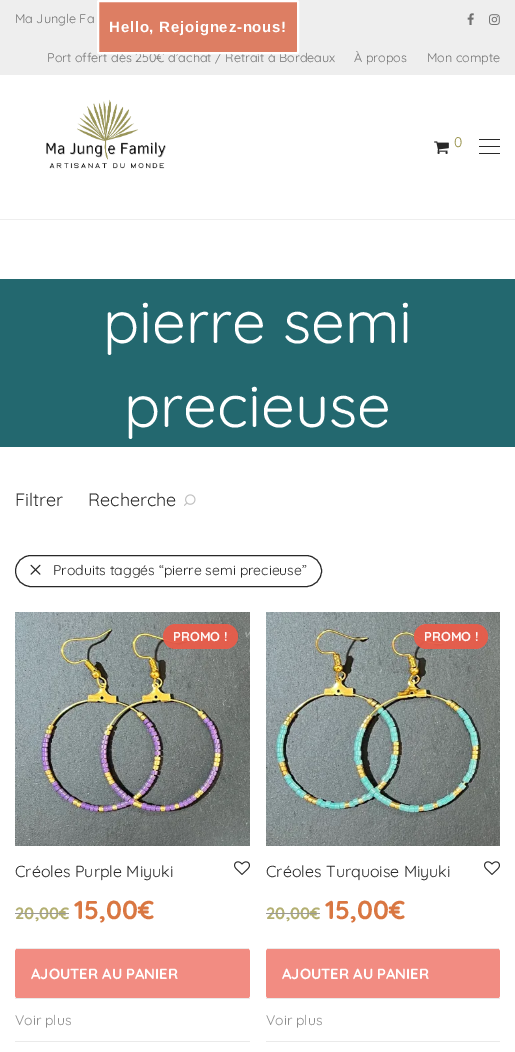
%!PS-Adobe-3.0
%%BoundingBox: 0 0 515 1052
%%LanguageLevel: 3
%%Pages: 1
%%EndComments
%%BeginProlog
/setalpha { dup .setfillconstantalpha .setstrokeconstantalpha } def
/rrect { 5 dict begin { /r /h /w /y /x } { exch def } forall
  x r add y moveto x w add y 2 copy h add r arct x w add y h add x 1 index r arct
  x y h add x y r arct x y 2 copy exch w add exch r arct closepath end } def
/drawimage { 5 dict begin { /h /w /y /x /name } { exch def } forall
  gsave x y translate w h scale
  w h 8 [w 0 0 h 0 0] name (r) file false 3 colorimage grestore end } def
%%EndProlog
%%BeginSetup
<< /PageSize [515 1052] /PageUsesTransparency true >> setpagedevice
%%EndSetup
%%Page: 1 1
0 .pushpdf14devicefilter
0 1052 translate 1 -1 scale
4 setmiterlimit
1 setgray
0 0 515 1052 rectfill
0.933 setgray
0 0 515 75 rectfill
(images/1.raw) 467 13 7 12 drawimage
(images/2.raw) 489 14 11 11 drawimage
0 219 515 1 rectfill
(images/3.raw) 46 99 120 70 drawimage
(images/4.raw) 434 141 15 13 drawimage
0.157 setgray
479 139 21 1 rectfill
479 146 21 1 rectfill
479 153 21 1 rectfill
0.137 0.408 0.435 setrgbcolor
0 279 515 168 rectfill
(images/5.raw) 184 494 12 12 drawimage
0.157 setgray
15.5 555.5 306 31 15.5 rrect stroke
(images/6.raw) 30 564 11 11 drawimage
(images/7.raw) 15 612 235 234 drawimage
0.95 setalpha
0.91 0.361 0.29 setrgbcolor
163 624 75 25 12.5 rrect fill
1 setalpha
(images/8.raw) 234 861 16 14 drawimage
0.949 0.549 0.51 setrgbcolor
15 948 235 51 4 rrect fill
0.918 setgray
17 948 231 1 rectfill
15 998 235 1 rectfill
15 1041 235 1 rectfill
(images/9.raw) 266 612 234 234 drawimage
0.95 setalpha
0.91 0.361 0.29 setrgbcolor
414 624 74 25 12.5 rrect fill
1 setalpha
(images/8.raw) 484 861 16 14 drawimage
0.949 0.549 0.51 setrgbcolor
266 948 234 51 4 rrect fill
0.918 setgray
268 948 230 1 rectfill
266 998 234 1 rectfill
266 1041 234 1 rectfill
/Quicksand-Regular [12.6 0 0 -12.6 0 0] selectfont
0.439 setgray
15 23 moveto (Ma Jungle Fa) show
47 62 moveto (Port offert dès 250€ d’achat / Retrait à Bordeaux) show
354 62 moveto (À propos) show
427 62 moveto (Mon compte) show
/Quicksand-Regular [14 0 0 -14 0 0] selectfont
0.569 0.545 0.247 setrgbcolor
454 147 moveto (0) show
/Quicksand-Regular [60 0 0 -60 0 0] selectfont
1 setgray
103 343 moveto (pierre semi) show
124 427 moveto (precieuse) show
/Quicksand-Regular [18 0 0 -18 0 0] selectfont
0.157 setgray
15 506 moveto (Filtrer) show
88 506 moveto (Recherche) show
/Quicksand-Regular [14 0 0 -14 0 0] selectfont
53 575 moveto (Produits taggés “pierre semi precieuse”) show
/Quicksand-Bold [13 0 0 -13 0 0] selectfont
0.996 0.969 0.965 setrgbcolor
173 641 moveto (PROMO !) show
/Quicksand-Regular [16 0 0 -16 0 0] selectfont
0.157 setgray
15 877 moveto (Créoles Purple Miyuki) show
/Quicksand-Bold [16.5 0 0 -16.5 0 0] selectfont
0.702 0.686 0.447 setrgbcolor
15 919 moveto (20,00) show
0.6 setgray
15 913 44 1 rectfill
0.702 0.686 0.447 setrgbcolor
59 919 moveto (€) show
0.6 setgray
59 913 10 1 rectfill
/Quicksand-Bold [26 0 0 -26 0 0] selectfont
0.851 0.467 0.259 setrgbcolor
74 919 moveto (15,00€) show
/Quicksand-Bold [14.75 0 0 -14.75 0 0] selectfont
1 setgray
31 979 moveto (AJOUTER AU PANIER) show
/Quicksand-Regular [14 0 0 -14 0 0] selectfont
0.549 setgray
15 1025 moveto (Voir plus) show
/Quicksand-Bold [13 0 0 -13 0 0] selectfont
0.996 0.969 0.965 setrgbcolor
424 641 moveto (PROMO !) show
/Quicksand-Regular [16 0 0 -16 0 0] selectfont
0.157 setgray
266 877 moveto (Créoles Turquoise Miyuki) show
/Quicksand-Bold [16.5 0 0 -16.5 0 0] selectfont
0.702 0.686 0.447 setrgbcolor
266 919 moveto (20,00€) show
0.6 setgray
266 913 54 1 rectfill
/Quicksand-Bold [26 0 0 -26 0 0] selectfont
0.851 0.467 0.259 setrgbcolor
325 919 moveto (15,00€) show
/Quicksand-Bold [14.75 0 0 -14.75 0 0] selectfont
1 setgray
282 979 moveto (AJOUTER AU PANIER) show
/Quicksand-Regular [14 0 0 -14 0 0] selectfont
0.549 setgray
266 1025 moveto (Voir plus) show
0.867 0.494 0.388 setrgbcolor
98 1 200 52 1 rrect gsave fill grestore
1 setgray
2 setlinewidth
stroke
/LiberationSans-Bold [15 0 0 -15 0 0] selectfont
109 32 moveto 0.75 0 (Hello, Rejoignez-nous!) ashow
.poppdf14devicefilter showpage
%%EOF
